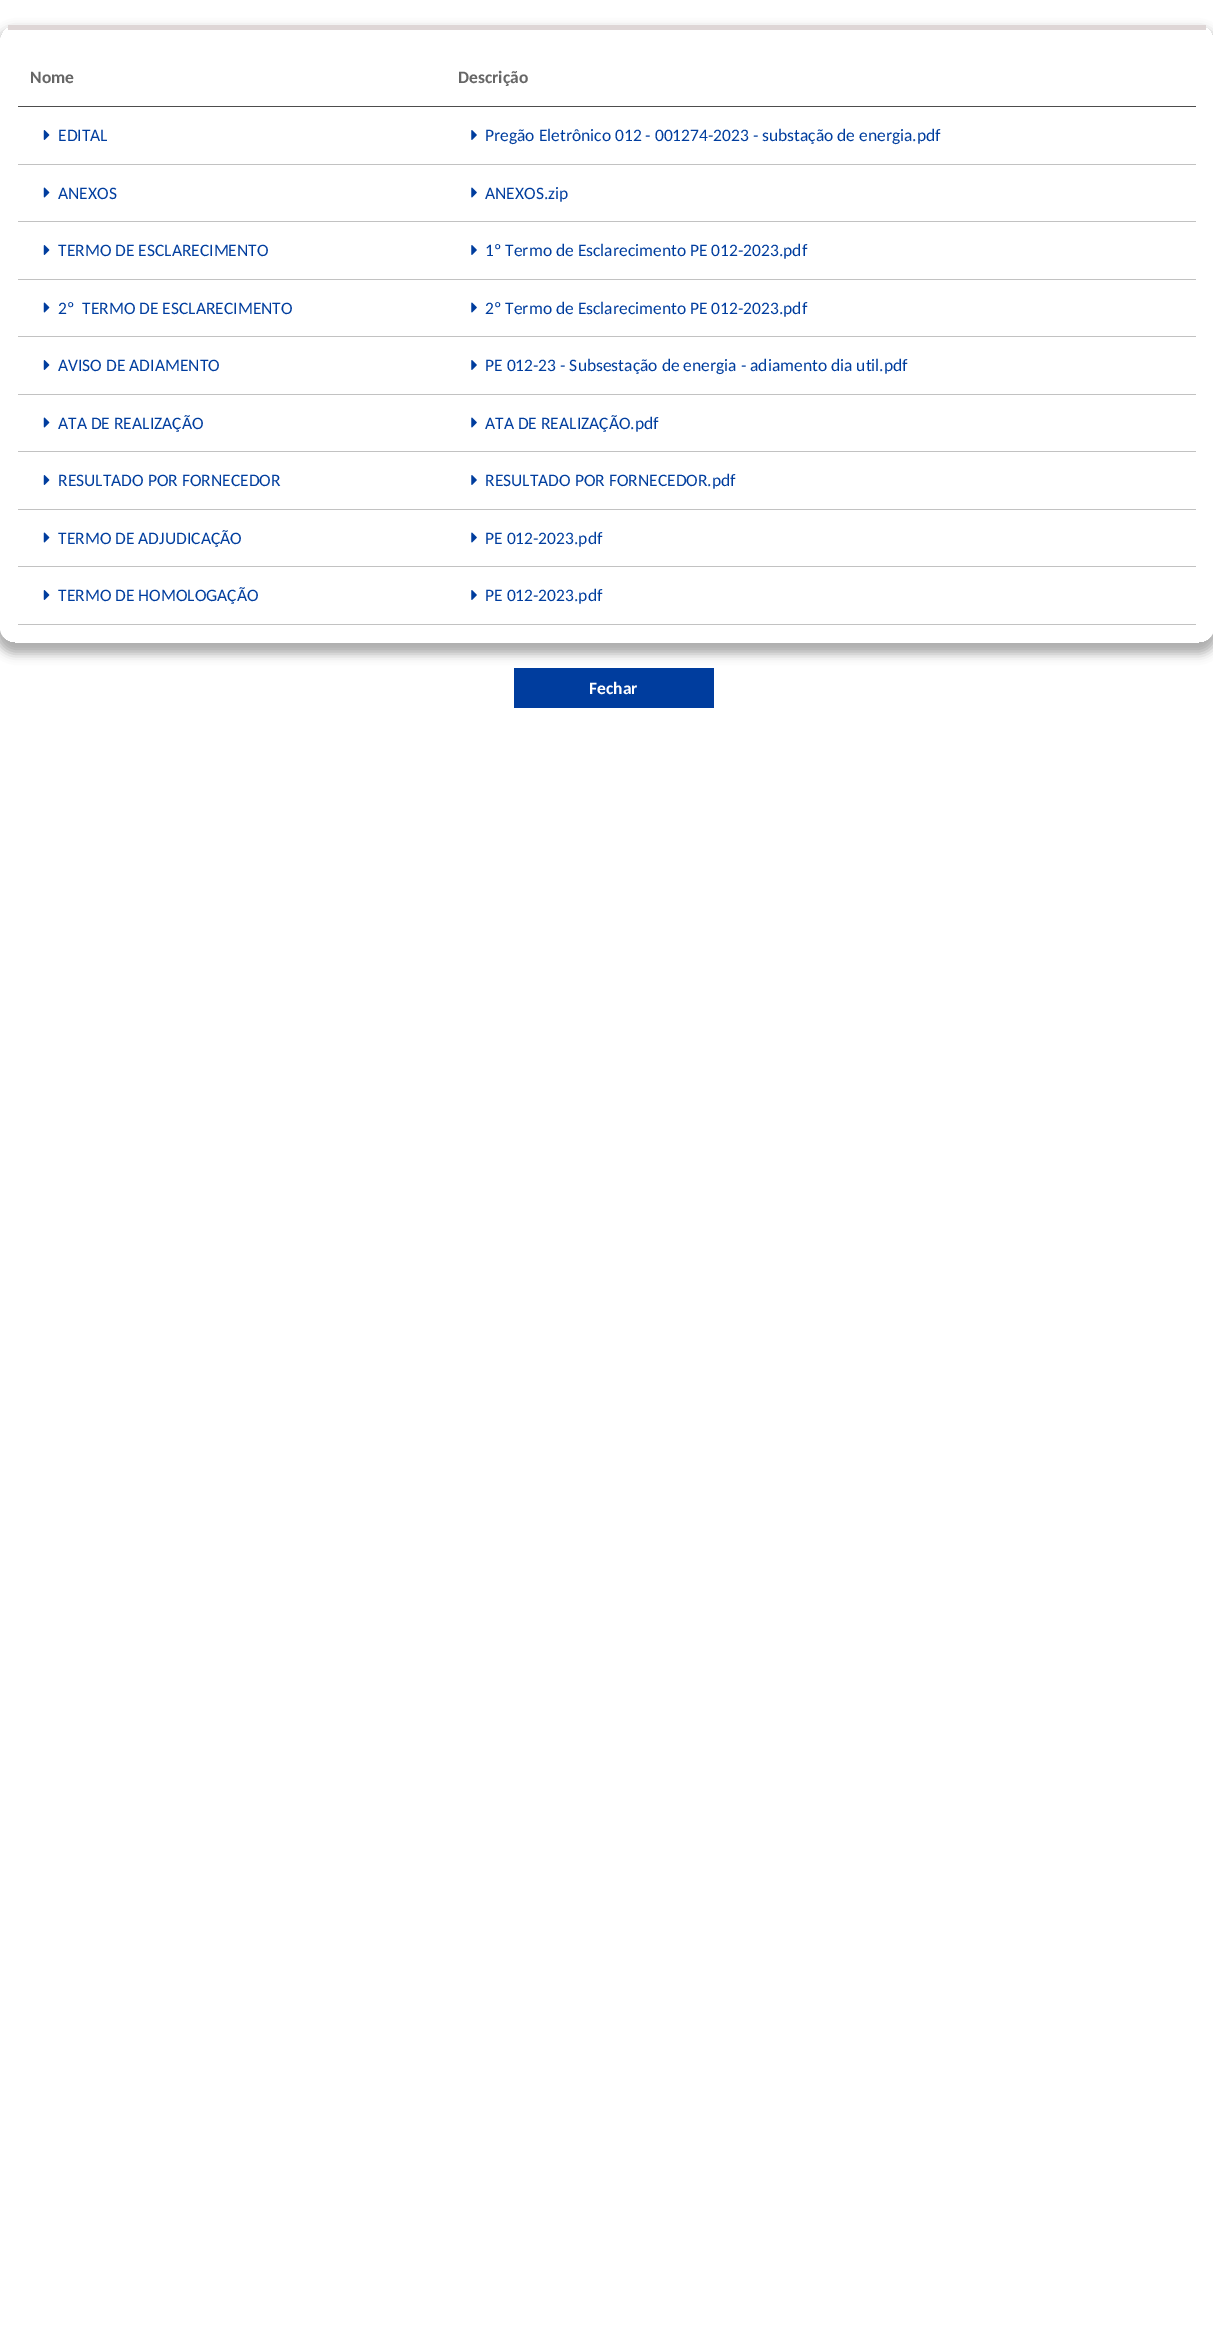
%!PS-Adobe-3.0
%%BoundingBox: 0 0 1213 2351
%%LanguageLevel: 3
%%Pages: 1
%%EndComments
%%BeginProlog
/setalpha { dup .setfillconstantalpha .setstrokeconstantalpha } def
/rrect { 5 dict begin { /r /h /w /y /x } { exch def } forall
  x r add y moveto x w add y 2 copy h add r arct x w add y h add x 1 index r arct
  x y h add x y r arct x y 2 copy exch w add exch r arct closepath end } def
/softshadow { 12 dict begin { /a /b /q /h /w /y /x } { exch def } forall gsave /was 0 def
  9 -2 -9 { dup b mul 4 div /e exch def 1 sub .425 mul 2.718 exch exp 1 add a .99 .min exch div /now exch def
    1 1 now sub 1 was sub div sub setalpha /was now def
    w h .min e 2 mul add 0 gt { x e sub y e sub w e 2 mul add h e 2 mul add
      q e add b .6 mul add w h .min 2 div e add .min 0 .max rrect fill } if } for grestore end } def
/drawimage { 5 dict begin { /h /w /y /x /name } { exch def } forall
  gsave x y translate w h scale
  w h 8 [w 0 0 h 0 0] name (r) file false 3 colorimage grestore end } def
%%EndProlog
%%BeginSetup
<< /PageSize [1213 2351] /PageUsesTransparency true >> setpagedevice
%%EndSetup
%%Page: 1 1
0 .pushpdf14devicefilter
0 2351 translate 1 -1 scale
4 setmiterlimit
1 setgray
0 0 1213 2351 rectfill
gsave
newpath 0 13 moveto 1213 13 lineto 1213 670 lineto 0 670 lineto closepath 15 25 moveto 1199 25 lineto 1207.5 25 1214 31.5 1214 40 curveto 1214 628 lineto 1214 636.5 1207.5 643 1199 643 curveto 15 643 lineto 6.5 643 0 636.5 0 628 curveto 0 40 lineto 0 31.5 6.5 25 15 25 curveto closepath eoclip newpath
0.667 setgray
-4 29 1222 625 19 5 0.96 softshadow
grestore
newpath 15 30 moveto 1199 30 lineto 1207 30 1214 34 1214 40 curveto 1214 628 lineto 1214 636 1207 642 1199 642 curveto 15 642 lineto 7 642 0 636 0 628 curveto 0 40 lineto 0 34 7 30 15 30 curveto closepath fill
0.871 0.839 0.839 setrgbcolor
8 25 1198 5 rectfill
0.302 setgray
18 106 1178 1 rectfill
0.761 setgray
18 164 1178 1 rectfill
(images/1.raw) 43 130 7 10 drawimage
(images/2.raw) 471 130 6 10 drawimage
18 221 1178 1 rectfill
(images/3.raw) 43 187 7 11 drawimage
(images/4.raw) 471 187 6 11 drawimage
18 279 1178 1 rectfill
(images/1.raw) 43 245 7 10 drawimage
(images/2.raw) 471 245 6 10 drawimage
18 336 1178 1 rectfill
(images/3.raw) 43 302 7 11 drawimage
(images/4.raw) 471 302 6 11 drawimage
18 394 1178 1 rectfill
(images/1.raw) 43 360 7 10 drawimage
(images/2.raw) 471 360 6 10 drawimage
18 451 1178 1 rectfill
(images/3.raw) 43 417 7 11 drawimage
(images/4.raw) 471 417 6 11 drawimage
18 509 1178 1 rectfill
(images/1.raw) 43 475 7 10 drawimage
(images/2.raw) 471 475 6 10 drawimage
18 566 1178 1 rectfill
(images/3.raw) 43 532 7 11 drawimage
(images/4.raw) 471 532 6 11 drawimage
18 624 1178 1 rectfill
(images/1.raw) 43 590 7 10 drawimage
(images/2.raw) 471 590 6 10 drawimage
0 0.239 0.62 setrgbcolor
514 668 200 40 rectfill
/Carlito-Bold [17.5 0 0 -17.5 0 0] selectfont
0.4 setgray
30 83 moveto (Nome) show
458 83 moveto (Descrição) show
/Carlito-Regular [17.5 0 0 -17.5 0 0] selectfont
0 0.239 0.62 setrgbcolor
58 141 moveto (EDITAL) show
485 141 moveto (Pregão Eletrônico 012 - 001274-2023 - substação de energia.pdf) show
58 199 moveto (ANEXOS) show
485 199 moveto (ANEXOS.zip) show
58 256 moveto (TERMO DE ESCLARECIMENTO) show
485 256 moveto (1º Termo de Esclarecimento PE 012-2023.pdf) show
58 314 moveto (2º  TERMO DE ESCLARECIMENTO) show
485 314 moveto (2º Termo de Esclarecimento PE 012-2023.pdf) show
58 371 moveto (AVISO DE ADIAMENTO) show
485 371 moveto (PE 012-23 - Subsestação de energia - adiamento dia util.pdf) show
58 429 moveto (ATA DE REALIZAÇÃO) show
485 429 moveto (ATA DE REALIZAÇÃO.pdf) show
58 486 moveto (RESULTADO POR FORNECEDOR) show
485 486 moveto (RESULTADO POR FORNECEDOR.pdf) show
58 544 moveto (TERMO DE ADJUDICAÇÃO) show
485 544 moveto (PE 012-2023.pdf) show
58 601 moveto (TERMO DE HOMOLOGAÇÃO) show
485 601 moveto (PE 012-2023.pdf) show
/Carlito-Bold [17.5 0 0 -17.5 0 0] selectfont
1 setgray
589 694 moveto (Fechar) show
.poppdf14devicefilter showpage
%%EOF
